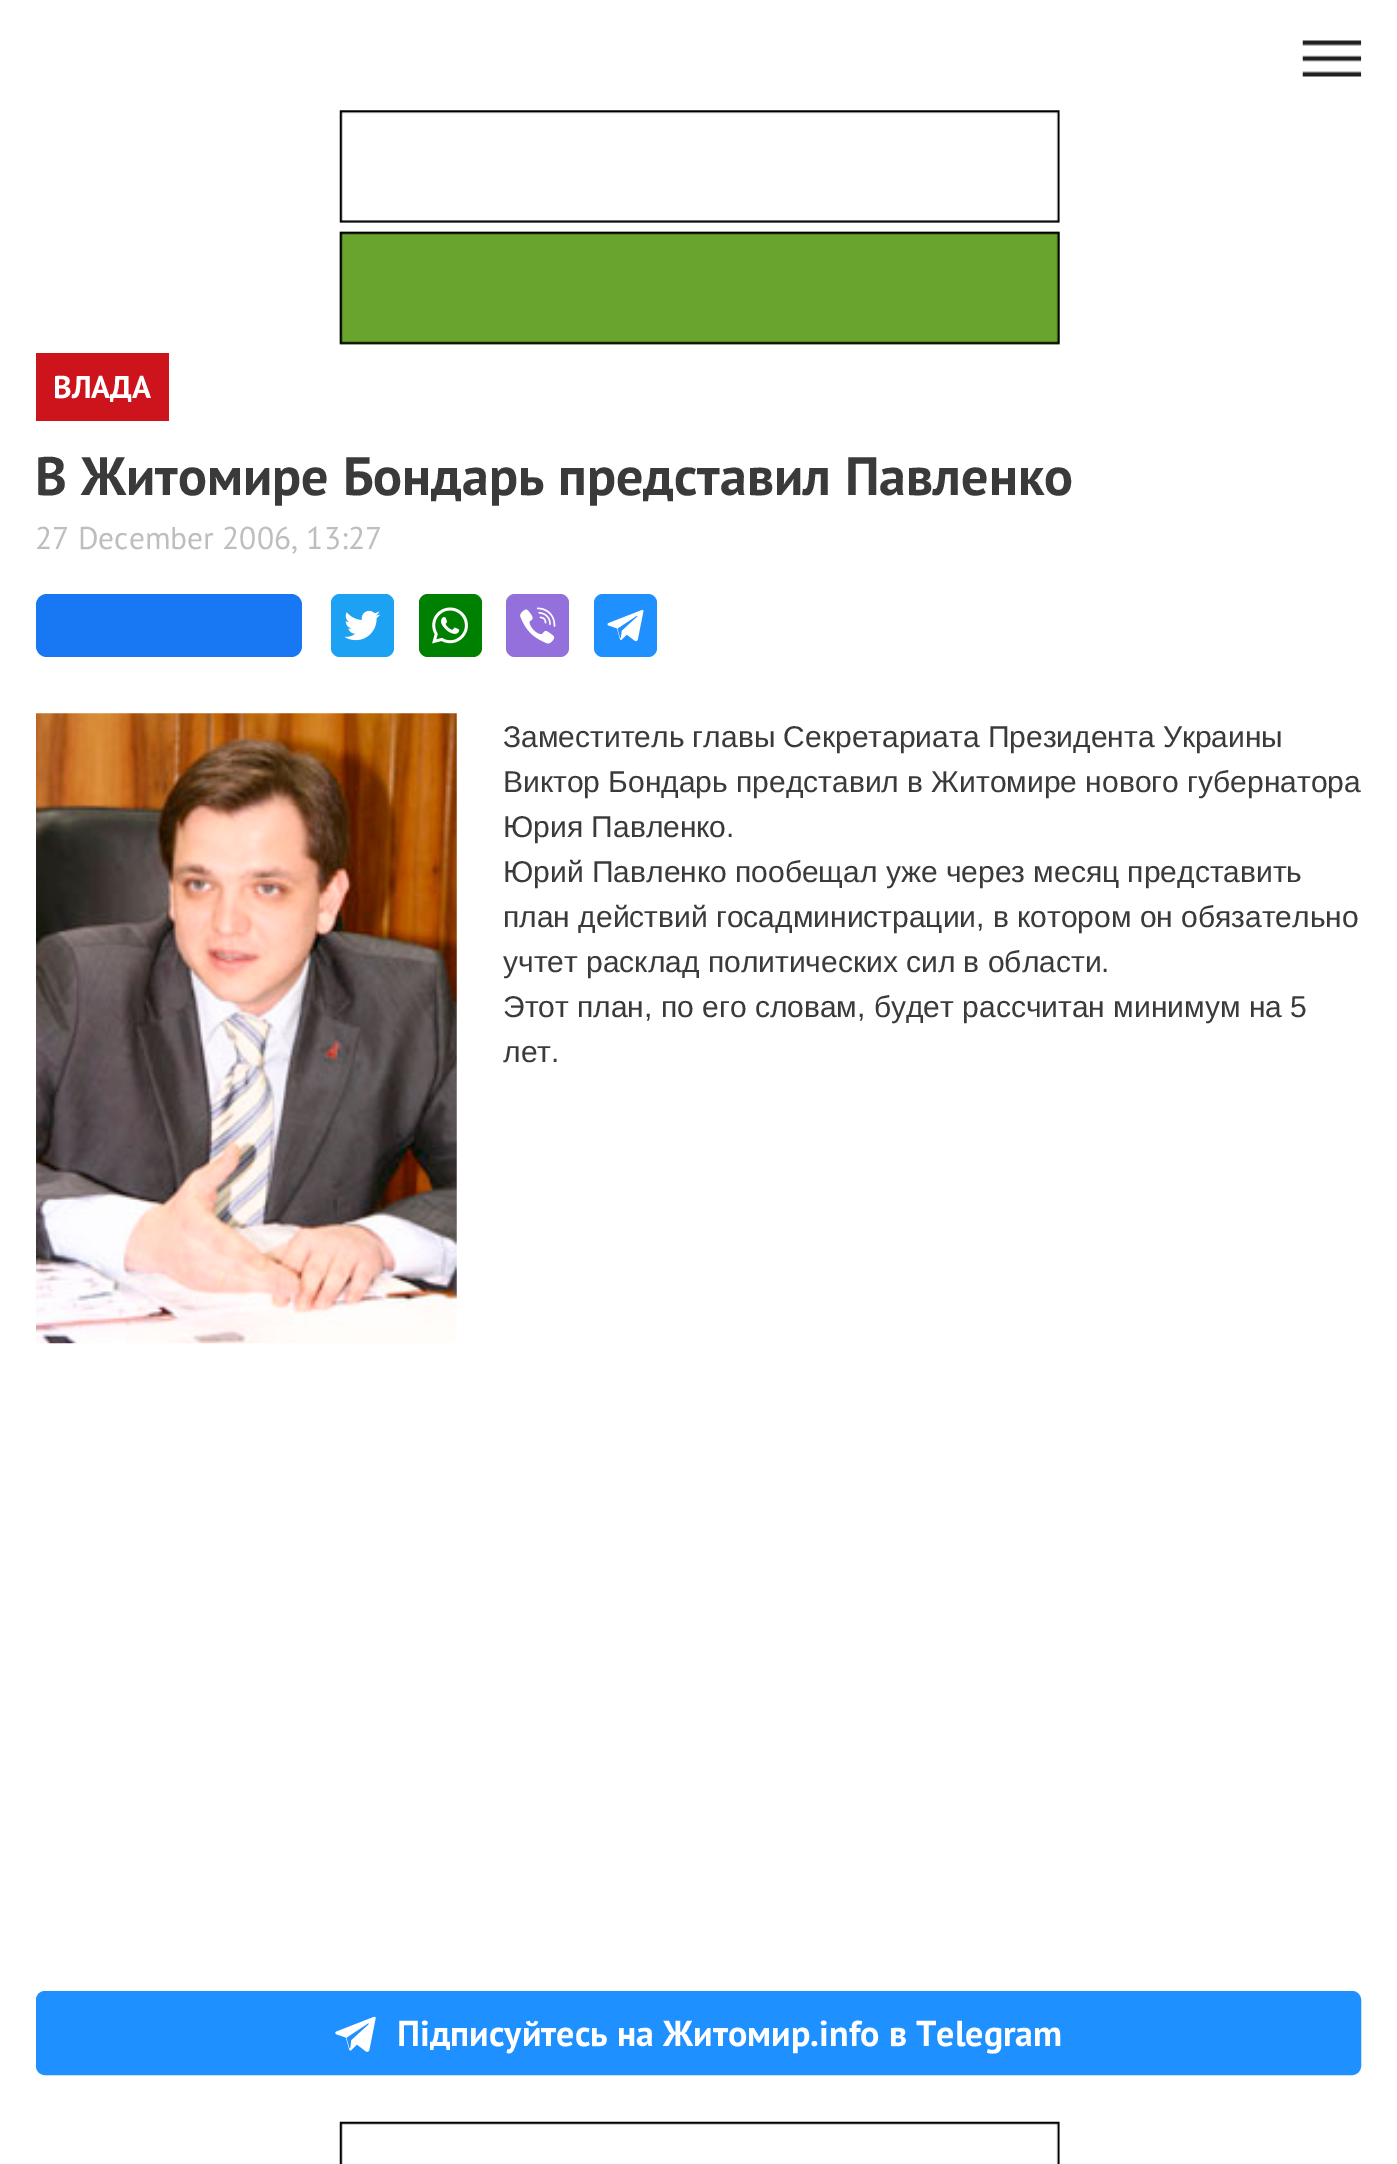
%!PS-Adobe-3.0
%%BoundingBox: 0 0 1397 2164
%%LanguageLevel: 3
%%Pages: 1
%%EndComments
%%BeginProlog
/rrect { 5 dict begin { /r /h /w /y /x } { exch def } forall
  x r add y moveto x w add y 2 copy h add r arct x w add y h add x 1 index r arct
  x y h add x y r arct x y 2 copy exch w add exch r arct closepath end } def
/drawimage { 5 dict begin { /h /w /y /x /name } { exch def } forall
  gsave x y translate w h scale
  w h 8 [w 0 0 h 0 0] name (r) file false 3 colorimage grestore end } def
%%EndProlog
%%BeginSetup
<< /PageSize [1397 2164] >> setpagedevice
%%EndSetup
%%Page: 1 1
0 2164 translate 1 -1 scale
4 setmiterlimit
1 setgray
0 0 1397 2164 rectfill
(images/1.raw) 1302 40 60 37 drawimage
(images/2.raw) 339 110 721 113 drawimage
(images/3.raw) 339 231 721 114 drawimage
0.804 0.078 0.11 setrgbcolor
36 353 133 68 rectfill
0.094 0.467 0.949 setrgbcolor
36 594 266 63 11 rrect fill
0.114 0.631 0.949 setrgbcolor
331 594 63 63 9 rrect fill
(images/4.raw) 344 610 37 31 drawimage
0 0.502 0 setrgbcolor
419 594 63 63 9 rrect fill
(images/5.raw) 432 607 36 37 drawimage
0.576 0.439 0.859 setrgbcolor
506 594 63 63 9 rrect fill
(images/6.raw) 520 607 36 37 drawimage
0.118 0.565 1 setrgbcolor
594 594 63 63 9 rrect fill
(images/7.raw) 607 609 37 33 drawimage
(images/8.raw) 36 713 421 631 drawimage
39.5 1994.5 1318 77 5.5 rrect gsave fill grestore
7 setlinewidth
stroke
(images/9.raw) 335 2016 41 36 drawimage
(images/10.raw) 339 2121 721 43 drawimage
/PTSans-Bold [31.5 0 0 -31.5 0 0] selectfont
1 setgray
53 398 moveto (ВЛАДА) show
/PTSans-Bold [54 0 0 -54 0 0] selectfont
0.227 setgray
35 495 moveto (В Житомире Бондарь представил Павленко) show
/PTSans-Regular [31.5 0 0 -31.5 0 0] selectfont
0.737 0.745 0.753 setrgbcolor
35 549 moveto (27 December 2006, 13:27) show
/LiberationSans-Regular [30 0 0 -30 0 0] selectfont
0.227 setgray
503 747 moveto (Заместитель главы Секретариата Президента Украины) show
503 792 moveto (Виктор Бондарь представил в Житомире нового губернатора) show
503 837 moveto (Юрия Павленко.) show
503 882 moveto (Юрий Павленко пообещал уже через месяц представить) show
503 927 moveto (план действий госадминистрации, в котором он обязательно) show
503 972 moveto (учтет расклад политических сил в области.) show
503 1017 moveto (Этот план, по его словам, будет рассчитан минимум на 5) show
503 1062 moveto (лет.) show
/PTSans-Bold [36 0 0 -36 0 0] selectfont
1 setgray
397 2046 moveto (Підписуйтесь на Житомир.info в Telegram) show
showpage
%%EOF
